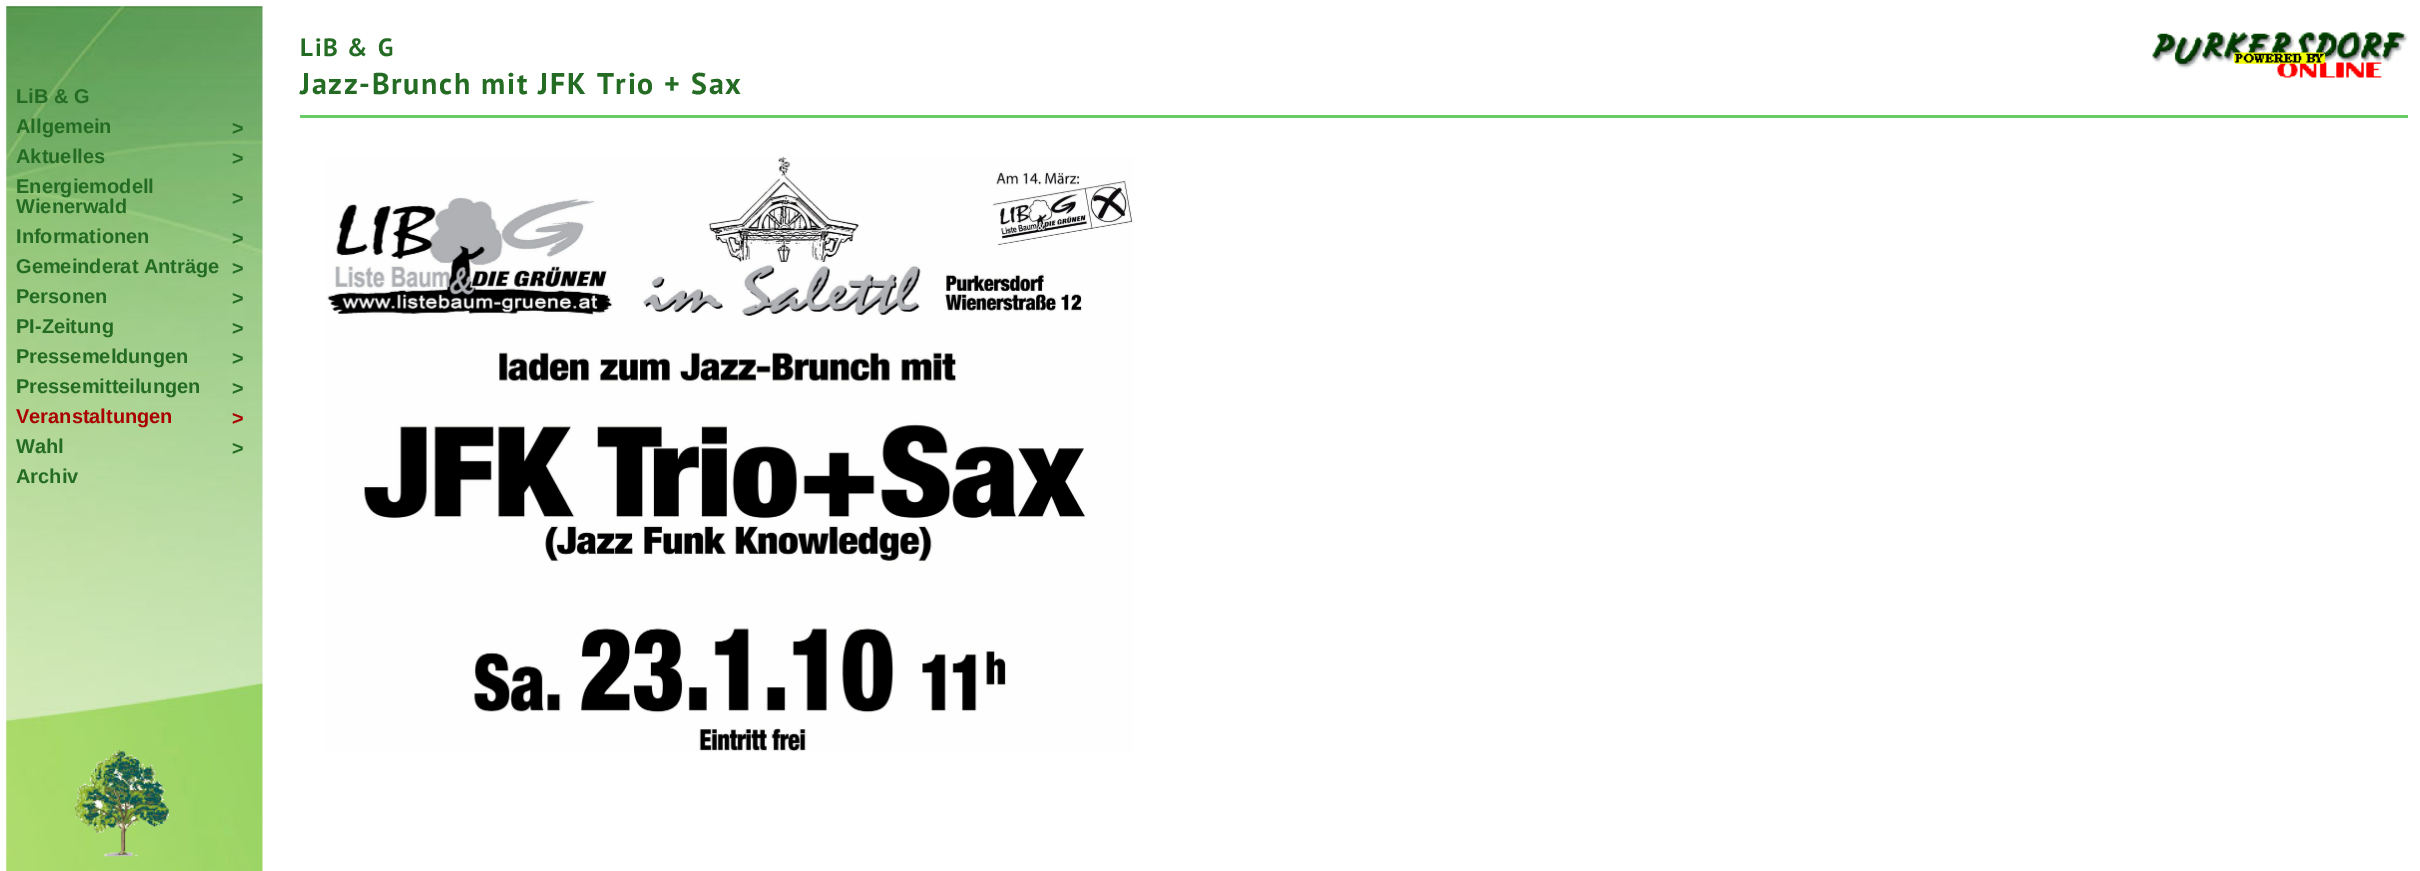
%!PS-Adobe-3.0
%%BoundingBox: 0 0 2420 871
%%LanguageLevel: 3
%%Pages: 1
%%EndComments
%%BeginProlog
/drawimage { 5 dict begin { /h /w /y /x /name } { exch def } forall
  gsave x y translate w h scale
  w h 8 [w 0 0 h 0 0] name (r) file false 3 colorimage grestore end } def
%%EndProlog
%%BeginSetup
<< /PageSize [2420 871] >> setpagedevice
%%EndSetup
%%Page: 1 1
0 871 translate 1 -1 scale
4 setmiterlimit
1 setgray
0 0 2420 871 rectfill
(images/1.raw) 6 6 257 865 drawimage
(images/2.raw) 2152 31 256 47 drawimage
0.4 0.8 0.4 setrgbcolor
300 115 2108 3 rectfill
(images/3.raw) 326 156 808 596 drawimage
(images/4.raw) 75 750 94 107 drawimage
/PTSans-Bold [25 0 0 -25 0 0] selectfont
0.141 0.424 0.141 setrgbcolor
300 56 moveto 1.7 0 (LiB & G) ashow
/PTSans-Bold [30 0 0 -30 0 0] selectfont
300 94 moveto 1.7 0 (Jazz-Brunch mit JFK Trio + Sax) ashow
/LiberationSans-Bold [20 0 0 -20 0 0] selectfont
16 103 moveto (LiB & G) show
16 133 moveto (Allgemein) show
232 135 moveto (>) show
16 163 moveto (Aktuelles) show
232 165 moveto (>) show
16 193 moveto (Energiemodell) show
232 205 moveto (>) show
16 213 moveto (Wienerwald) show
16 243 moveto (Informationen) show
232 245 moveto (>) show
16 273 moveto (Gemeinderat Anträge) show
232 275 moveto (>) show
16 303 moveto (Personen) show
232 305 moveto (>) show
16 333 moveto (PI-Zeitung) show
232 335 moveto (>) show
16 363 moveto (Pressemeldungen) show
232 365 moveto (>) show
16 393 moveto (Pressemitteilungen) show
232 395 moveto (>) show
0.667 0 0 setrgbcolor
16 423 moveto (Veranstaltungen) show
232 425 moveto (>) show
0.141 0.424 0.141 setrgbcolor
16 453 moveto (Wahl) show
232 455 moveto (>) show
16 483 moveto (Archiv) show
showpage
%%EOF
